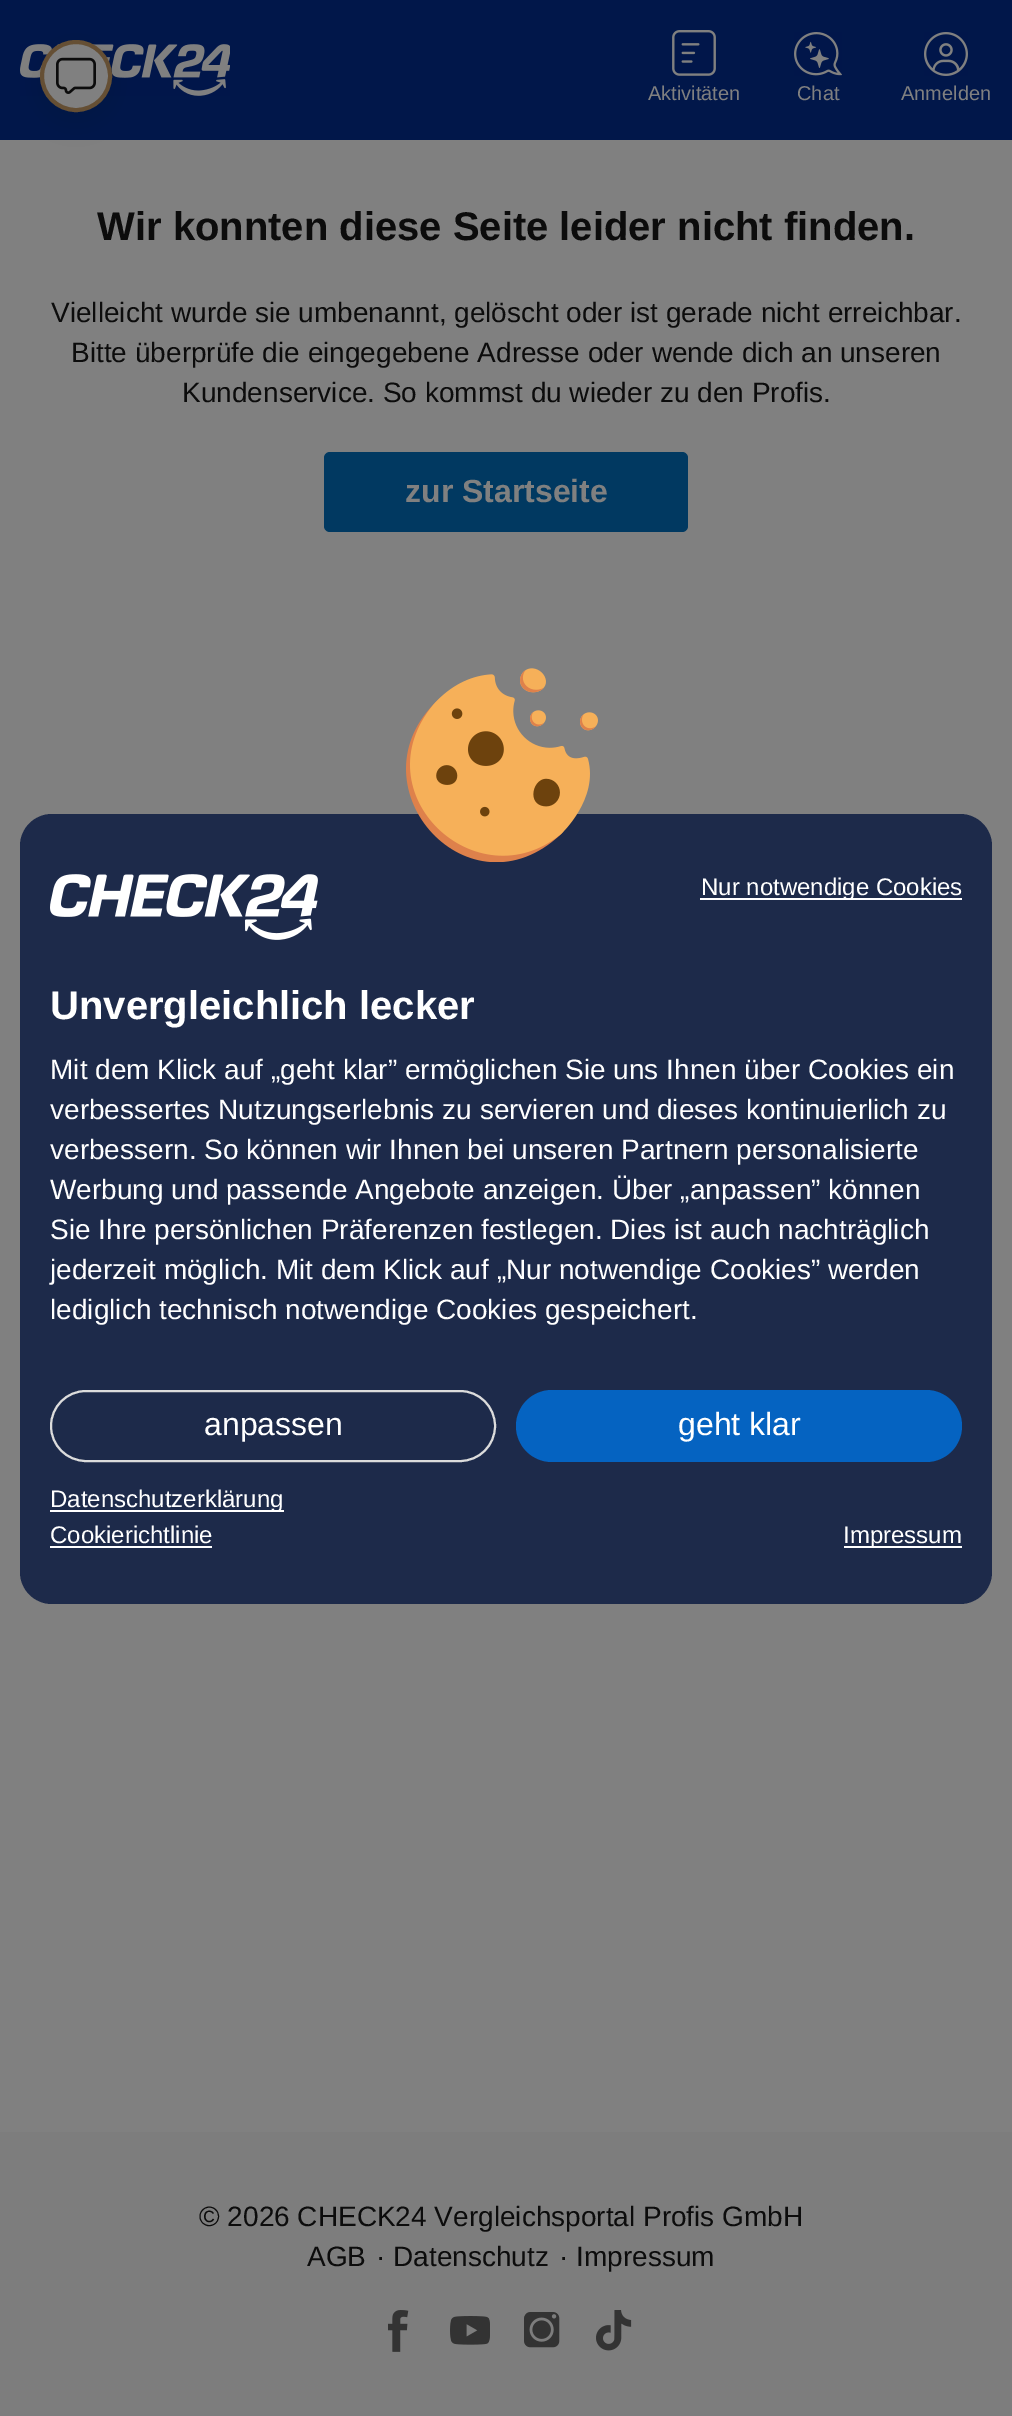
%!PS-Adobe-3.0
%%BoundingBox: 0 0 1012 2416
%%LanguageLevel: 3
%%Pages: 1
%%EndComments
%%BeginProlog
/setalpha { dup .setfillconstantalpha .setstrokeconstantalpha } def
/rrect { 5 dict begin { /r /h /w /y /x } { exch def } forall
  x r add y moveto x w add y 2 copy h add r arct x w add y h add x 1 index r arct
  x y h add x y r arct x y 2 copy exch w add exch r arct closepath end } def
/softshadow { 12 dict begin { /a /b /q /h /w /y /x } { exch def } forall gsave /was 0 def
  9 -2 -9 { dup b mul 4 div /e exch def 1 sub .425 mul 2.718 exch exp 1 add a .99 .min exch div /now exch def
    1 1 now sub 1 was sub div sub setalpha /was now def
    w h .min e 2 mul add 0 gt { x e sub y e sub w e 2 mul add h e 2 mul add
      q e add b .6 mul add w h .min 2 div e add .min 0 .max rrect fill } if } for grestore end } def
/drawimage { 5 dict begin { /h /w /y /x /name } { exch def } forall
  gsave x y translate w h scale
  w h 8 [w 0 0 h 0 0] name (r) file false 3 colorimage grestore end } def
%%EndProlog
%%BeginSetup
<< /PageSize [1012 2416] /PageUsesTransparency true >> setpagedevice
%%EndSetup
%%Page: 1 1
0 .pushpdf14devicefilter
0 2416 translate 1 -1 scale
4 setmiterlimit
0.502 setgray
0 0 1012 2416 rectfill
0.004 0.09 0.29 setrgbcolor
0 0 1012 140 rectfill
(images/2.raw) 20 44 210 52 drawimage
0 setgray
40 48 72 72 36 12 0.1 softshadow
0.502 setgray
newpath 76 76 34 0 360 arc closepath gsave fill grestore
0.396 0.31 0.204 setrgbcolor
4 setlinewidth
stroke
(images/1.raw) 56 57 40 37 drawimage
(images/3.raw) 672 30 44 46 drawimage
(images/4.raw) 794 32 48 44 drawimage
(images/5.raw) 924 32 44 44 drawimage
0.004 0.224 0.38 setrgbcolor
324 452 364 80 6 rrect fill
0.49 setgray
0 2132 1012 284 rectfill
(images/6.raw) 388 2310 21 42 drawimage
(images/7.raw) 450 2316 40 29 drawimage
(images/8.raw) 524 2312 36 36 drawimage
(images/9.raw) 596 2310 36 41 drawimage
0.114 0.165 0.29 setrgbcolor
20 814 972 790 32 rrect fill
(images/10.raw) 406 668 192 194 drawimage
(images/11.raw) 50 874 268 66 drawimage
1 setgray
700 898 262 2 rectfill
0.863 setgray
2 setlinewidth
51 1391 444 70 35 rrect stroke
0.02 0.388 0.757 setrgbcolor
516 1390 446 72 36 rrect fill
1 setgray
50 1510 234 2 rectfill
50 1546 162 2 rectfill
844 1546 118 2 rectfill
/LiberationSans-Regular [20 0 0 -20 0 0] selectfont
0.502 setgray
648 100 moveto (Aktivitäten) show
797 100 moveto (Chat) show
901 100 moveto (Anmelden) show
/LiberationSans-Bold [40 0 0 -40 0 0] selectfont
0.047 setgray
97 240 moveto (Wir konnten diese Seite leider nicht finden.) show
/LiberationSans-Regular [28 0 0 -28 0 0] selectfont
51 322 moveto (Vielleicht wurde sie umbenannt, gelöscht oder ist gerade nicht erreichbar.) show
71 362 moveto (Bitte überprüfe die eingegebene Adresse oder wende dich an unseren) show
182 402 moveto (Kundenservice. So kommst du wieder zu den Profis.) show
/LiberationSans-Bold [32 0 0 -32 0 0] selectfont
0.502 setgray
405 502 moveto (zur Startseite) show
/LiberationSans-Regular [28 0 0 -28 0 0] selectfont
0.047 setgray
199 2226 moveto (© 2026 CHECK24 Vergleichsportal Profis GmbH) show
307 2266 moveto (AGB) show
376 2266 moveto (· Datenschutz) show
559 2266 moveto (· Impressum) show
/LiberationSans-Regular [24 0 0 -24 0 0] selectfont
1 setgray
701 895 moveto (Nur notwendige Cookies) show
/LiberationSans-Bold [40 0 0 -40 0 0] selectfont
50 1019 moveto (Unvergleichlich lecker) show
/LiberationSans-Regular [28 0 0 -28 0 0] selectfont
50 1079 moveto (Mit dem Klick auf „geht klar” ermöglichen Sie uns Ihnen über Cookies ein) show
50 1119 moveto (verbessertes Nutzungserlebnis zu servieren und dieses kontinuierlich zu) show
50 1159 moveto (verbessern. So können wir Ihnen bei unseren Partnern personalisierte) show
50 1199 moveto (Werbung und passende Angebote anzeigen. Über „anpassen” können) show
50 1239 moveto (Sie Ihre persönlichen Präferenzen festlegen. Dies ist auch nachträglich) show
50 1279 moveto (jederzeit möglich. Mit dem Klick auf „Nur notwendige Cookies” werden) show
50 1319 moveto (lediglich technisch notwendige Cookies gespeichert.) show
/LiberationSans-Regular [32 0 0 -32 0 0] selectfont
204 1435 moveto (anpassen) show
678 1435 moveto (geht klar) show
/LiberationSans-Regular [24 0 0 -24 0 0] selectfont
50 1507 moveto (Datenschutzerklärung) show
50 1543 moveto (Cookierichtlinie) show
843 1543 moveto (Impressum) show
.poppdf14devicefilter showpage
%%EOF
